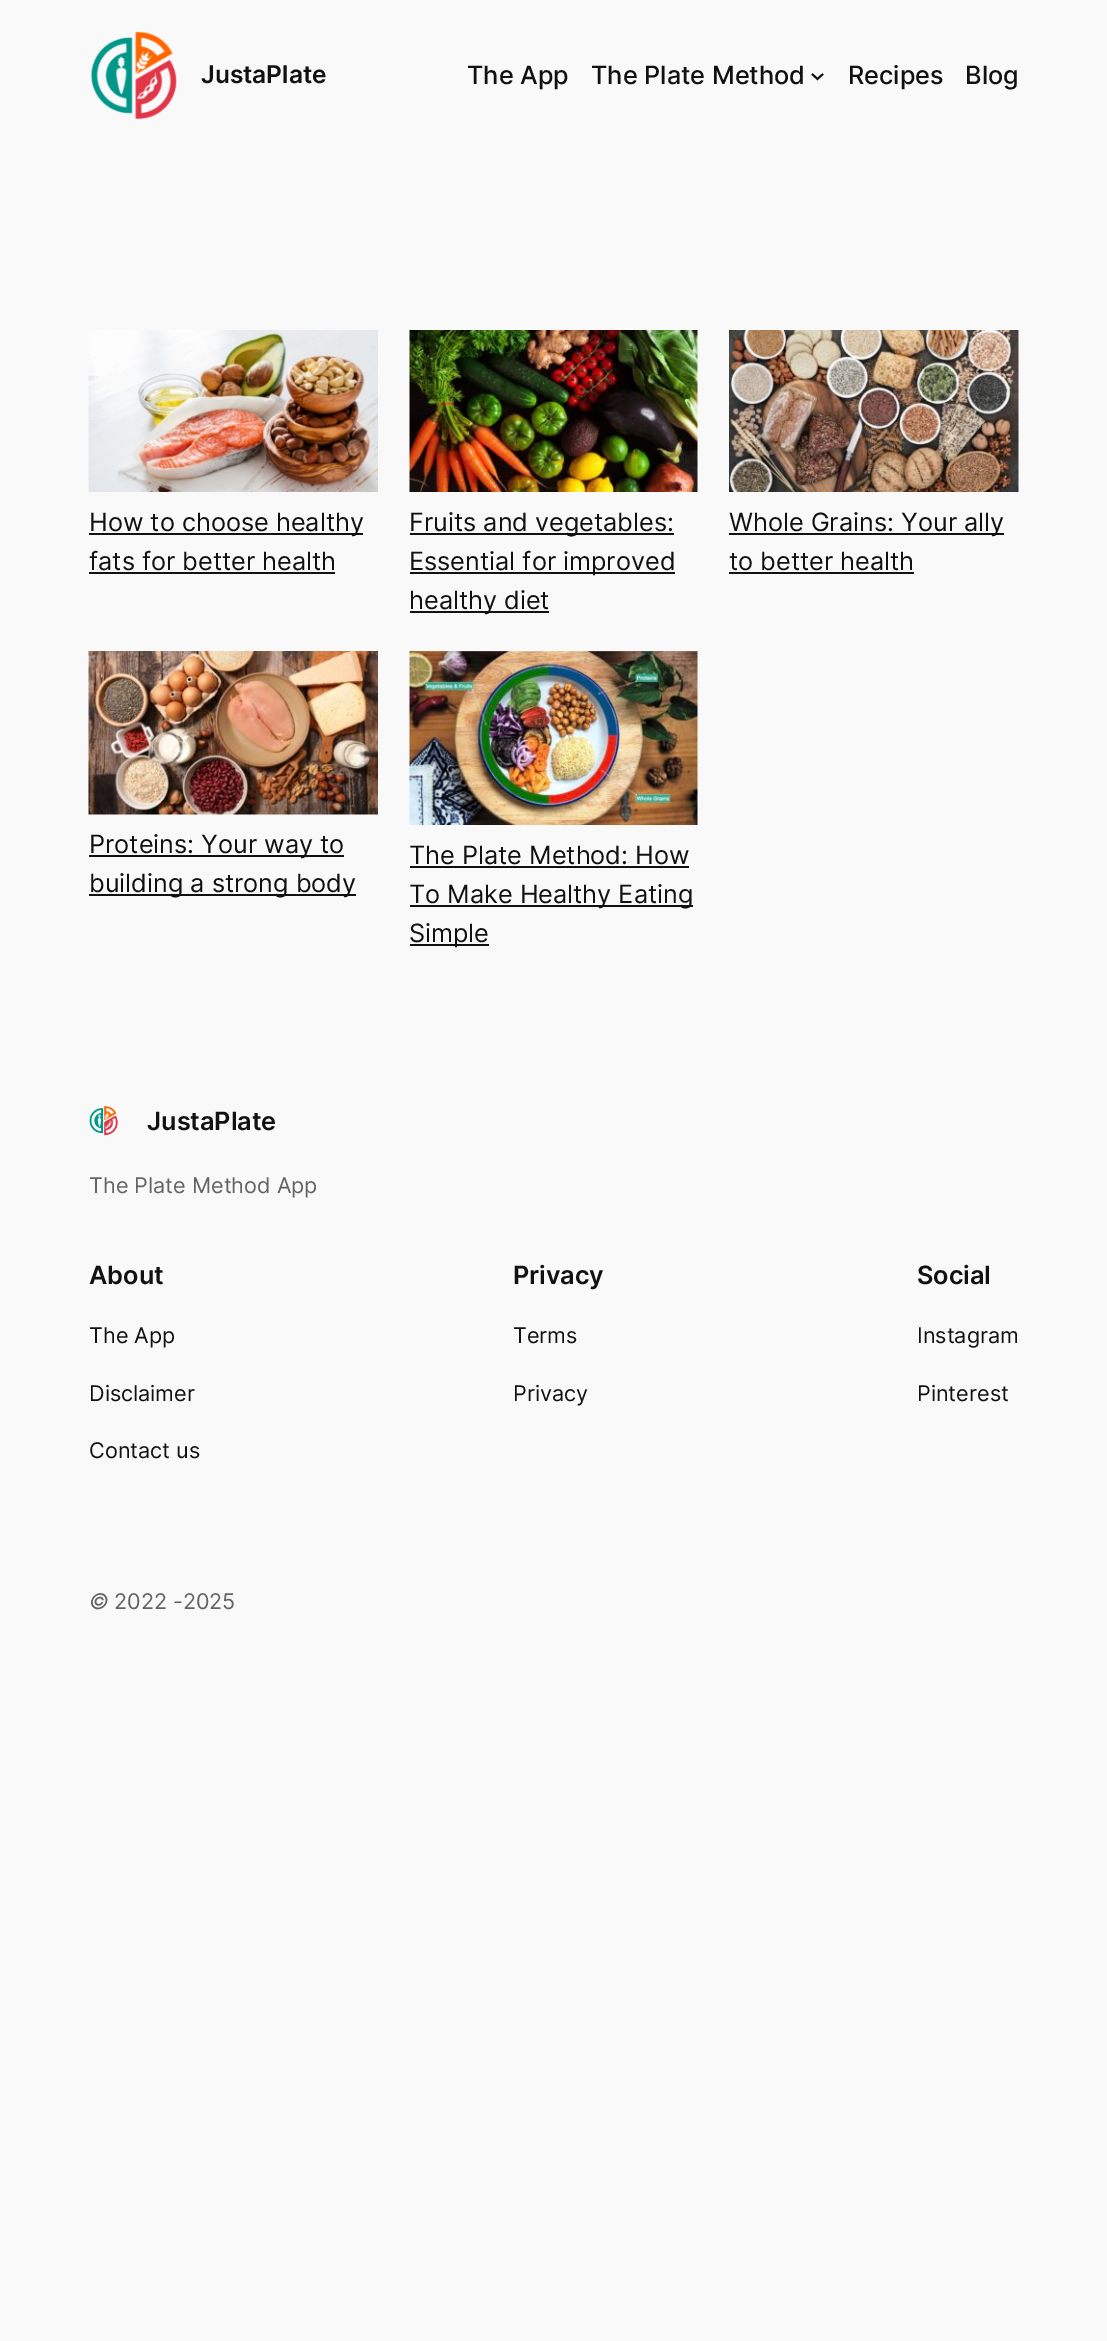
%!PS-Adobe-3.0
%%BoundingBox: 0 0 1107 2341
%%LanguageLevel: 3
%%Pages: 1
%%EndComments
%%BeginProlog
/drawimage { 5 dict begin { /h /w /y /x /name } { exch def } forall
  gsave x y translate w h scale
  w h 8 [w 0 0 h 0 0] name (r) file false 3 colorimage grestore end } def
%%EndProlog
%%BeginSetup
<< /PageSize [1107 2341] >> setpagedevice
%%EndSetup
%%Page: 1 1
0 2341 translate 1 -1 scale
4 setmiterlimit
0.976 setgray
0 0 1107 2341 rectfill
(images/1.raw) 91 31 86 89 drawimage
0.067 setgray
1.9 setlinewidth
newpath 812 74 moveto 817.5 79 lineto 823 74 lineto stroke
(images/2.raw) 88 330 290 162 drawimage
89 533 274 2 rectfill
89 572 246 2 rectfill
(images/3.raw) 409 330 289 162 drawimage
410 533 264 2 rectfill
410 572 265 2 rectfill
410 611 139 2 rectfill
(images/4.raw) 729 330 290 162 drawimage
729 533 275 2 rectfill
729 572 185 2 rectfill
(images/5.raw) 88 651 290 164 drawimage
89 855 255 2 rectfill
89 894 267 2 rectfill
(images/6.raw) 409 651 289 174 drawimage
410 866 279 2 rectfill
410 905 283 2 rectfill
410 944 79 2 rectfill
(images/7.raw) 89 1106 29 30 drawimage
/Inter-SemiBold [24.5 0 0 -24.5 0 0] selectfont
201 83 moveto (JustaPlate) show
/Inter-Medium [25.25 0 0 -25.25 0 0] selectfont
467 84 moveto (The App) show
591 84 moveto (The Plate Method) show
848 84 moveto (Recipes) show
965 84 moveto (Blog) show
/Inter-Regular [25.25 0 0 -25.25 0 0] selectfont
89 531 moveto (How to choose healthy) show
89 570 moveto (fats for better health) show
409 531 moveto (Fruits and vegetables:) show
409 570 moveto (Essential for improved) show
409 609 moveto (healthy diet) show
729 531 moveto (Whole Grains: Your ally) show
729 570 moveto (to better health) show
89 853 moveto (Proteins: Your way to) show
89 892 moveto (building a strong body) show
409 864 moveto (The Plate Method: How) show
409 903 moveto (To Make Healthy Eating) show
409 942 moveto (Simple) show
/Inter-SemiBold [25.25 0 0 -25.25 0 0] selectfont
147 1130 moveto (JustaPlate) show
/Inter-Regular [21.6 0 0 -21.6 0 0] selectfont
0.388 setgray
89 1193 moveto (The Plate Method App) show
/Inter-SemiBold [25.25 0 0 -25.25 0 0] selectfont
0.067 setgray
89 1284 moveto (About) show
/Inter-Regular [21.6 0 0 -21.6 0 0] selectfont
89 1343 moveto (The App) show
89 1401 moveto (Disclaimer) show
89 1458 moveto (Contact us) show
/Inter-SemiBold [25.25 0 0 -25.25 0 0] selectfont
513 1284 moveto (Privacy) show
/Inter-Regular [21.6 0 0 -21.6 0 0] selectfont
513 1343 moveto (Terms) show
513 1401 moveto (Privacy) show
/Inter-SemiBold [25.25 0 0 -25.25 0 0] selectfont
917 1284 moveto (Social) show
/Inter-Regular [21.6 0 0 -21.6 0 0] selectfont
917 1343 moveto (Instagram) show
917 1401 moveto (Pinterest) show
/Inter-Italic [21.6 0 0 -21.6 0 0] selectfont
0.388 setgray
89 1609 moveto (©) show
/Inter-Regular [21.6 0 0 -21.6 0 0] selectfont
114 1609 moveto (2022 -2025) show
showpage
%%EOF
